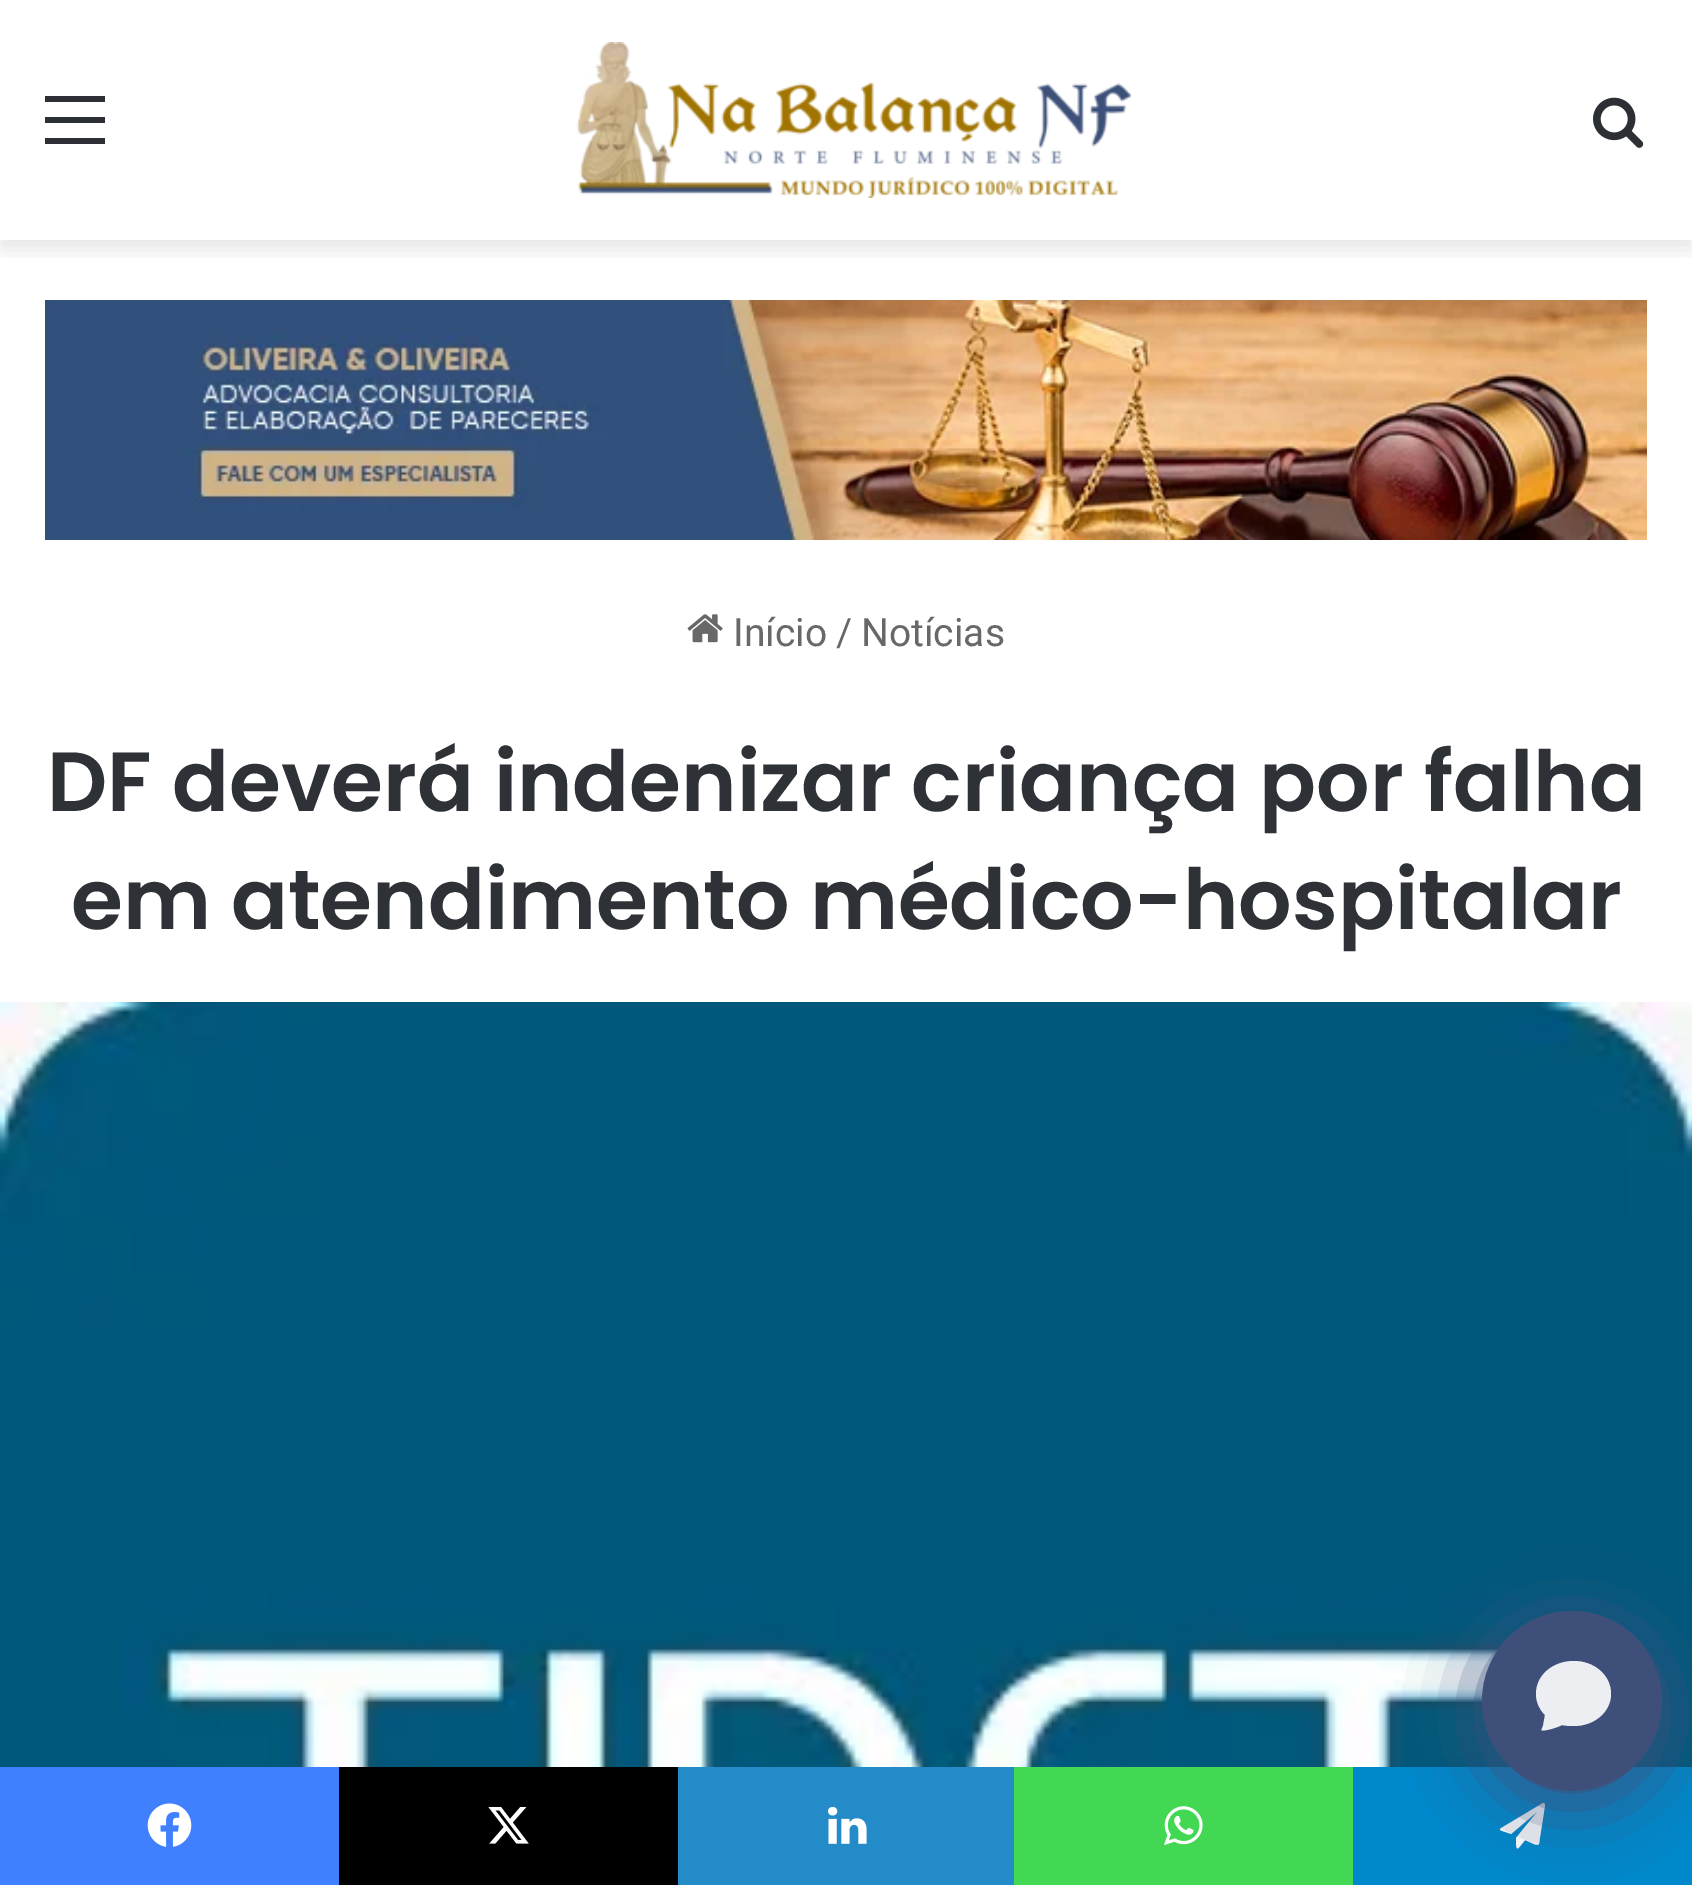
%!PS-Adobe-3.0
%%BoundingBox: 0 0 1692 1885
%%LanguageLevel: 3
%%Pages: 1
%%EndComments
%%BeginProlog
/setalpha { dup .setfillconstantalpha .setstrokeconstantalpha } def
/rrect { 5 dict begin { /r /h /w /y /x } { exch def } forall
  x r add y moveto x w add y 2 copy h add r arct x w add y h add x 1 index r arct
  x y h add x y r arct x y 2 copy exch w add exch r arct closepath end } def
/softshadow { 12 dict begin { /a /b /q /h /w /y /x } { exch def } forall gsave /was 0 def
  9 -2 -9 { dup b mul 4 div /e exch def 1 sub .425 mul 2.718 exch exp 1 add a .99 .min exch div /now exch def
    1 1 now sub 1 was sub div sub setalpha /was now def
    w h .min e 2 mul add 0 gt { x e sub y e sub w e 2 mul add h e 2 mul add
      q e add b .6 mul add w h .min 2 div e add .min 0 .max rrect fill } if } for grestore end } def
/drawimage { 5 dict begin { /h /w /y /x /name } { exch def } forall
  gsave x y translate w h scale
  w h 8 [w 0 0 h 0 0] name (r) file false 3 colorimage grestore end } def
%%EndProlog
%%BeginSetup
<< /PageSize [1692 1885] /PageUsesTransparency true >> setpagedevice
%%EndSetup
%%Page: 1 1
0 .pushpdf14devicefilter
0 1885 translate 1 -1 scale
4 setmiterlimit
1 setgray
0 0 1692 1885 rectfill
gsave
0 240 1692 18 rectclip
0 setgray
0 9 1692 240 0 10.5 0.1 softshadow
grestore
0.173 0.184 0.204 setrgbcolor
45 117 60 6 rectfill
45 96 60 6 rectfill
45 138 60 6 rectfill
(images/1.raw) 576 42 555 156 drawimage
(images/2.raw) 1593 97 51 51 drawimage
(images/3.raw) 45 300 1602 240 drawimage
(images/4.raw) 687 614 36 29 drawimage
(images/5.raw) 0 1002 1692 765 drawimage
0.251 0.502 1 setrgbcolor
0 1767 339 118 rectfill
(images/6.raw) 147 1803 45 44 drawimage
0 setgray
339 1767 339 118 rectfill
(images/7.raw) 488 1807 41 37 drawimage
0.137 0.549 0.784 setrgbcolor
678 1767 336 118 rectfill
(images/8.raw) 828 1806 39 38 drawimage
0.263 0.847 0.329 setrgbcolor
1014 1767 339 118 rectfill
(images/9.raw) 1164 1806 39 40 drawimage
0 0.533 0.8 setrgbcolor
1353 1767 339 118 rectfill
1 setgray
newpath 1544 1803 moveto 1546 1805 1544 1809 1544 1812 curveto 1540 1837 lineto 1539 1844 1540 1846 1534 1844 curveto 1525 1840 lineto 1517 1850 1516 1853 1516 1838 curveto 1538 1811 lineto 1511 1834 lineto 1498 1829 1496 1831 1508 1824 curveto 1543 1803 lineto closepath fill
0.243 0.314 0.478 setrgbcolor
1482 1623 180 180 90 36 0.6 softshadow
1482 1623 180 180 90 36 0.6 softshadow
newpath 1572 1701 90 0 360 arc closepath fill
0.925 0.933 0.949 setrgbcolor
newpath 1574 1726 moveto 1594 1726 1611 1712 1611 1694 curveto 1611 1675 1594 1661 1574 1661 curveto 1553 1661 1536 1675 1536 1694 curveto 1536 1702 1539 1709 1545 1715 curveto 1543 1726 lineto 1541 1731 1540 1731 1547 1730 curveto 1552 1729 1558 1727 1562 1725 curveto 1566 1726 1570 1726 1574 1726 curveto closepath fill
/Roboto-Regular [39 0 0 -39 0 0] selectfont
0.408 setgray
733 646 moveto (Início) show
836 646 moveto (/) show
861 646 moveto (Notícias) show
/Poppins-SemiBold [84 0 0 -84 0 0] selectfont
0.18 0.192 0.212 setrgbcolor
47 811 moveto (DF deverá indenizar criança por falha) show
71 929 moveto (em atendimento médico-hospitalar) show
.poppdf14devicefilter showpage
%%EOF
